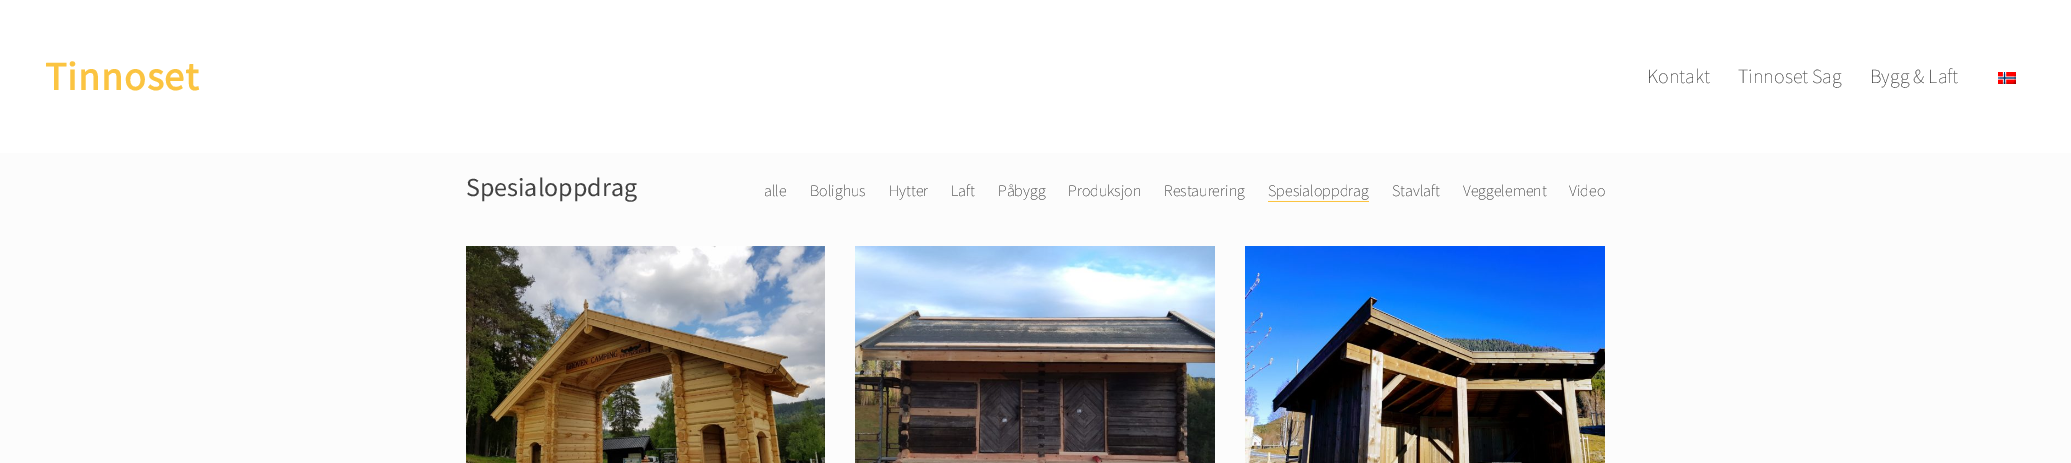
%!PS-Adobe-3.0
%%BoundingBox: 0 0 2071 463
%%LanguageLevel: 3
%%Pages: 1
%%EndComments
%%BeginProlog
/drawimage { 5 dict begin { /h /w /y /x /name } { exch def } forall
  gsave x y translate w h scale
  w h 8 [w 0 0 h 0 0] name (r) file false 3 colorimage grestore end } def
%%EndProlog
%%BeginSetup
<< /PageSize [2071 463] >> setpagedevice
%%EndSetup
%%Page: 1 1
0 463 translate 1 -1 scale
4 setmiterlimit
0.988 setgray
0 0 2071 463 rectfill
1 setgray
0 0 2071 153 rectfill
(images/1.raw) 1998 72 18 12 drawimage
0.984 0.769 0.255 setrgbcolor
1268 201 101 1 rectfill
(images/2.raw) 466 246 359 217 drawimage
(images/3.raw) 855 246 360 217 drawimage
(images/4.raw) 1245 246 360 217 drawimage
/SourceSansPro-Bold [40 0 0 -40 0 0] selectfont
45 90 moveto 1 0 (Tinnoset) ashow
/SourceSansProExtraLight-ExtraLight [20 0 0 -20 0 0] selectfont
0.2 setgray
1647 83 moveto (Kontakt) show
1738 83 moveto (Tinnoset Sag) show
1870 83 moveto (Bygg & Laft) show
/SourceSansPro-Regular [26 0 0 -26 0 0] selectfont
0.259 setgray
466 196 moveto (Spesialoppdrag) show
/SourceSansProExtraLight-ExtraLight [16 0 0 -16 0 0] selectfont
0.157 setgray
764 196 moveto (alle) show
810 196 moveto (Bolighus) show
889 196 moveto (Hytter) show
951 196 moveto (Laft) show
998 196 moveto (Påbygg) show
1068 196 moveto (Produksjon) show
1164 196 moveto (Restaurering) show
1268 196 moveto (Spesialoppdrag) show
1392 196 moveto (Stavlaft) show
1463 196 moveto (Veggelement) show
1569 196 moveto (Video) show
showpage
%%EOF
